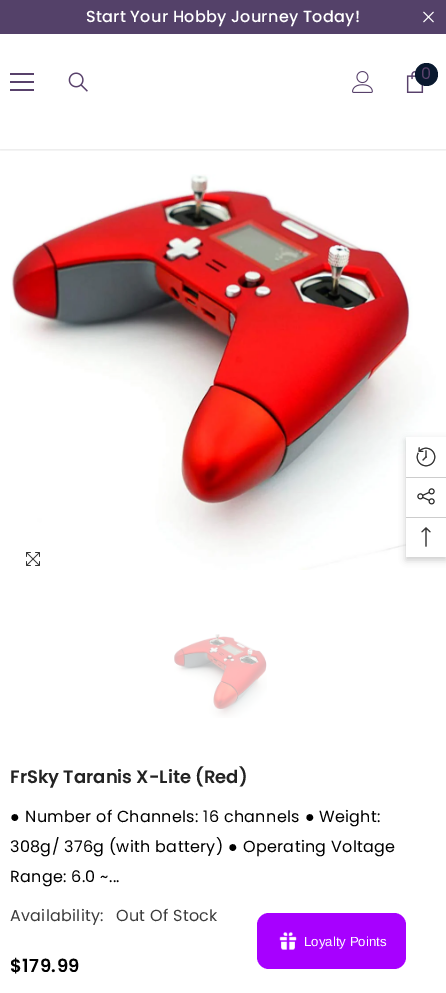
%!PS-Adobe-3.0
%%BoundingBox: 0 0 446 993
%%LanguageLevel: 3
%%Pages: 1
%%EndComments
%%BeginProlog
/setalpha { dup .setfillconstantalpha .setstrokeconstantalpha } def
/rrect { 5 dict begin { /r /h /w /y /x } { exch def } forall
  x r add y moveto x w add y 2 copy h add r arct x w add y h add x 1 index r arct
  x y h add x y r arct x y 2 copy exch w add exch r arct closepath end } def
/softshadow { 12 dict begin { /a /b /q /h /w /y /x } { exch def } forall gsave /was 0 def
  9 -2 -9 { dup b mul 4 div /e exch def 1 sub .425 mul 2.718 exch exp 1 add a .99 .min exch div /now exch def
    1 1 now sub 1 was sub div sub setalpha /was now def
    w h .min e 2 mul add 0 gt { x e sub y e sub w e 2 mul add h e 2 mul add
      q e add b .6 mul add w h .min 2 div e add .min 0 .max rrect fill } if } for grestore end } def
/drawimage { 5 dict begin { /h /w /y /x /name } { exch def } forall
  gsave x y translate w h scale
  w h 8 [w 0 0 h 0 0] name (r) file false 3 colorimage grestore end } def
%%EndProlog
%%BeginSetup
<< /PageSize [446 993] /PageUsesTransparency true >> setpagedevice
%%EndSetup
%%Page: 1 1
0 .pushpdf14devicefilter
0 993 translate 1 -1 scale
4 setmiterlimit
1 setgray
0 0 446 993 rectfill
0.329 0.255 0.412 setrgbcolor
0 0 446 34 rectfill
(images/1.raw) 423 11 11 12 drawimage
gsave
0 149 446 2 rectclip
0 setgray
0 35 446 115 0 1.5 0.1 softshadow
grestore
0.345 0.255 0.42 setrgbcolor
10 81 24 2 rectfill
10 73 24 2 rectfill
10 89 24 2 rectfill
(images/2.raw) 68 72 20 20 drawimage
(images/3.raw) 352 71 21 22 drawimage
(images/4.raw) 406 71 18 22 drawimage
0.039 0.098 0.184 setrgbcolor
newpath 426.5 74.5 11.5 0 360 arc closepath fill
(images/5.raw) 10 174 426 396 drawimage
(images/6.raw) 26 552 14 14 drawimage
(images/7.raw) 174 634 93 84 drawimage
0 setgray
406 440 40 120 0 3.5 0.2 softshadow
1 setgray
406 437 40 120 rectfill
(images/8.raw) 416 447 20 20 drawimage
0.8 setgray
406 477 40 1 rectfill
(images/9.raw) 417 488 18 17 drawimage
406 517 40 1 rectfill
(images/10.raw) 421 527 10 20 drawimage
0.655 0 1 setrgbcolor
257 913 149 56 12 rrect fill
(images/11.raw) 279 932 18 18 drawimage
/Poppins-Medium [16 0 0 -16 0 0] selectfont
1 setgray
86 22 moveto 0.3 0 (Start Your Hobby Journey Today!) ashow
/Poppins-Regular [16 0 0 -16 0 0] selectfont
0.345 0.255 0.42 setrgbcolor
421 79 moveto (0) show
/Poppins-SemiBold [18 0 0 -18 0 0] selectfont
0.137 setgray
10 783 moveto (FrSky Taranis X-Lite \(Red\)) show
/LiberationSerif-Regular [16 0 0 -16 0 0] selectfont
0 setgray
10 822 moveto 0.3 0 (●) ashow
/Poppins-Regular [16 0 0 -16 0 0] selectfont
25 822 moveto 0.3 0 (Number of Channels: 16 channels) ashow
/LiberationSerif-Regular [16 0 0 -16 0 0] selectfont
305 822 moveto 0.3 0 (●) ashow
/Poppins-Regular [16 0 0 -16 0 0] selectfont
319 822 moveto 0.3 0 (Weight:) ashow
10 852 moveto 0.3 0 (308g/ 376g \(with battery\)) ashow
/LiberationSerif-Regular [16 0 0 -16 0 0] selectfont
228 852 moveto 0.3 0 (●) ashow
/Poppins-Regular [16 0 0 -16 0 0] selectfont
243 852 moveto 0.3 0 (Operating Voltage) ashow
10 882 moveto 0.3 0 (Range: 6.0 ~...) ashow
0.235 setgray
10 921 moveto 0.3 0 (Availability:) ashow
116 921 moveto 0.3 0 (Out Of Stock) ashow
/Poppins-SemiBold [18 0 0 -18 0 0] selectfont
0 setgray
10 972 moveto 0.5 0 ($179.99) ashow
/LiberationSans-Regular [13.25 0 0 -13.25 0 0] selectfont
1 setgray
304 946 moveto (Loyalty Points) show
.poppdf14devicefilter showpage
%%EOF
